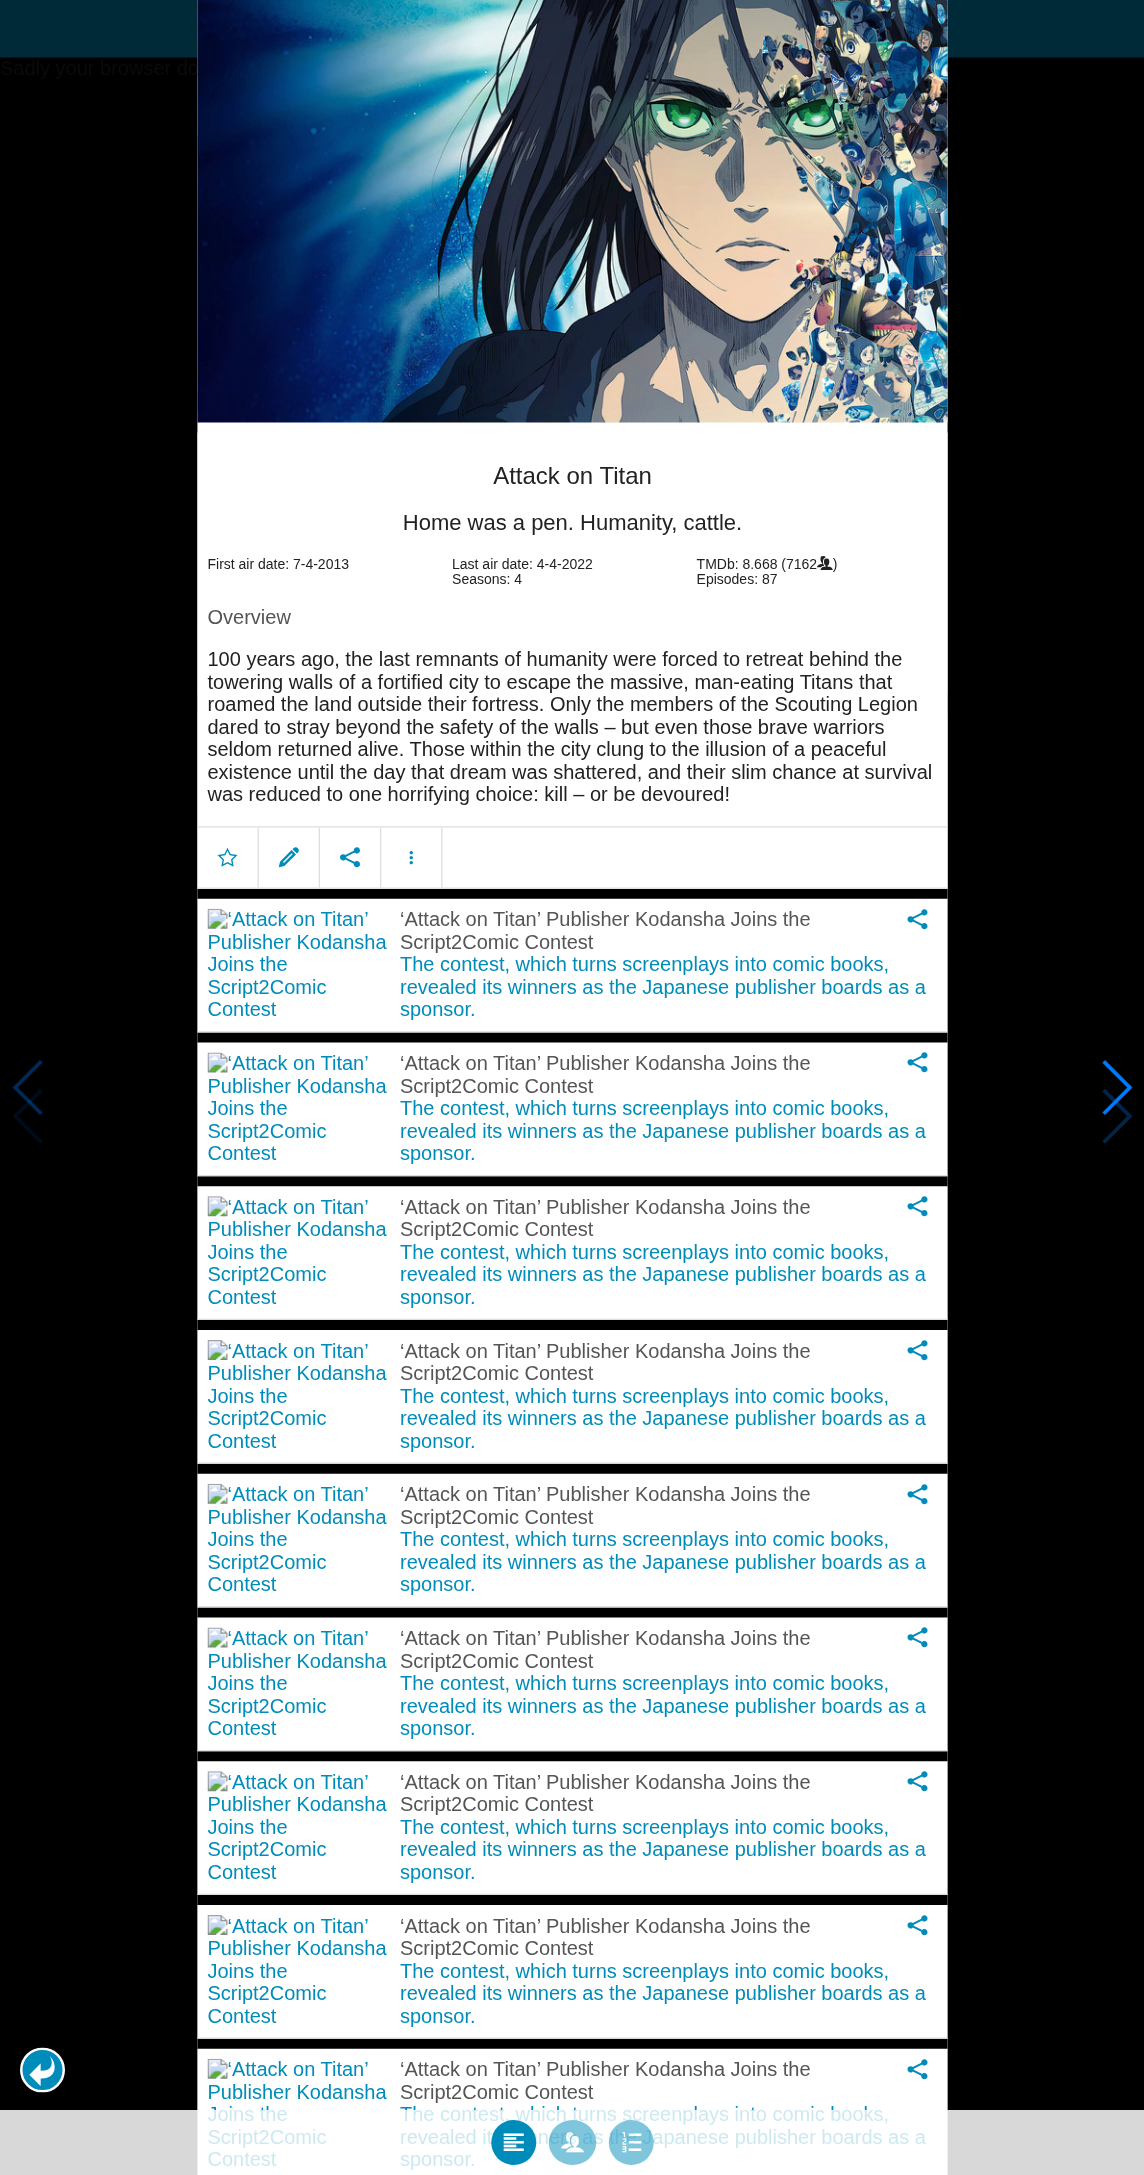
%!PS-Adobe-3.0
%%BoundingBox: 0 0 1144 2175
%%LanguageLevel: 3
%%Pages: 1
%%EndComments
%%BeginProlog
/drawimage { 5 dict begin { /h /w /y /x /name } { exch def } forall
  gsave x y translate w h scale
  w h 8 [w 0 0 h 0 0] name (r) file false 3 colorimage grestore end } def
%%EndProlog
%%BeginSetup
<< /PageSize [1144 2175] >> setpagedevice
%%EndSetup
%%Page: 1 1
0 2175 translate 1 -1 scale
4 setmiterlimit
1 setgray
0 0 1144 2175 rectfill
(images/1.raw) 0 0 1144 2175 drawimage
showpage
%%EOF
